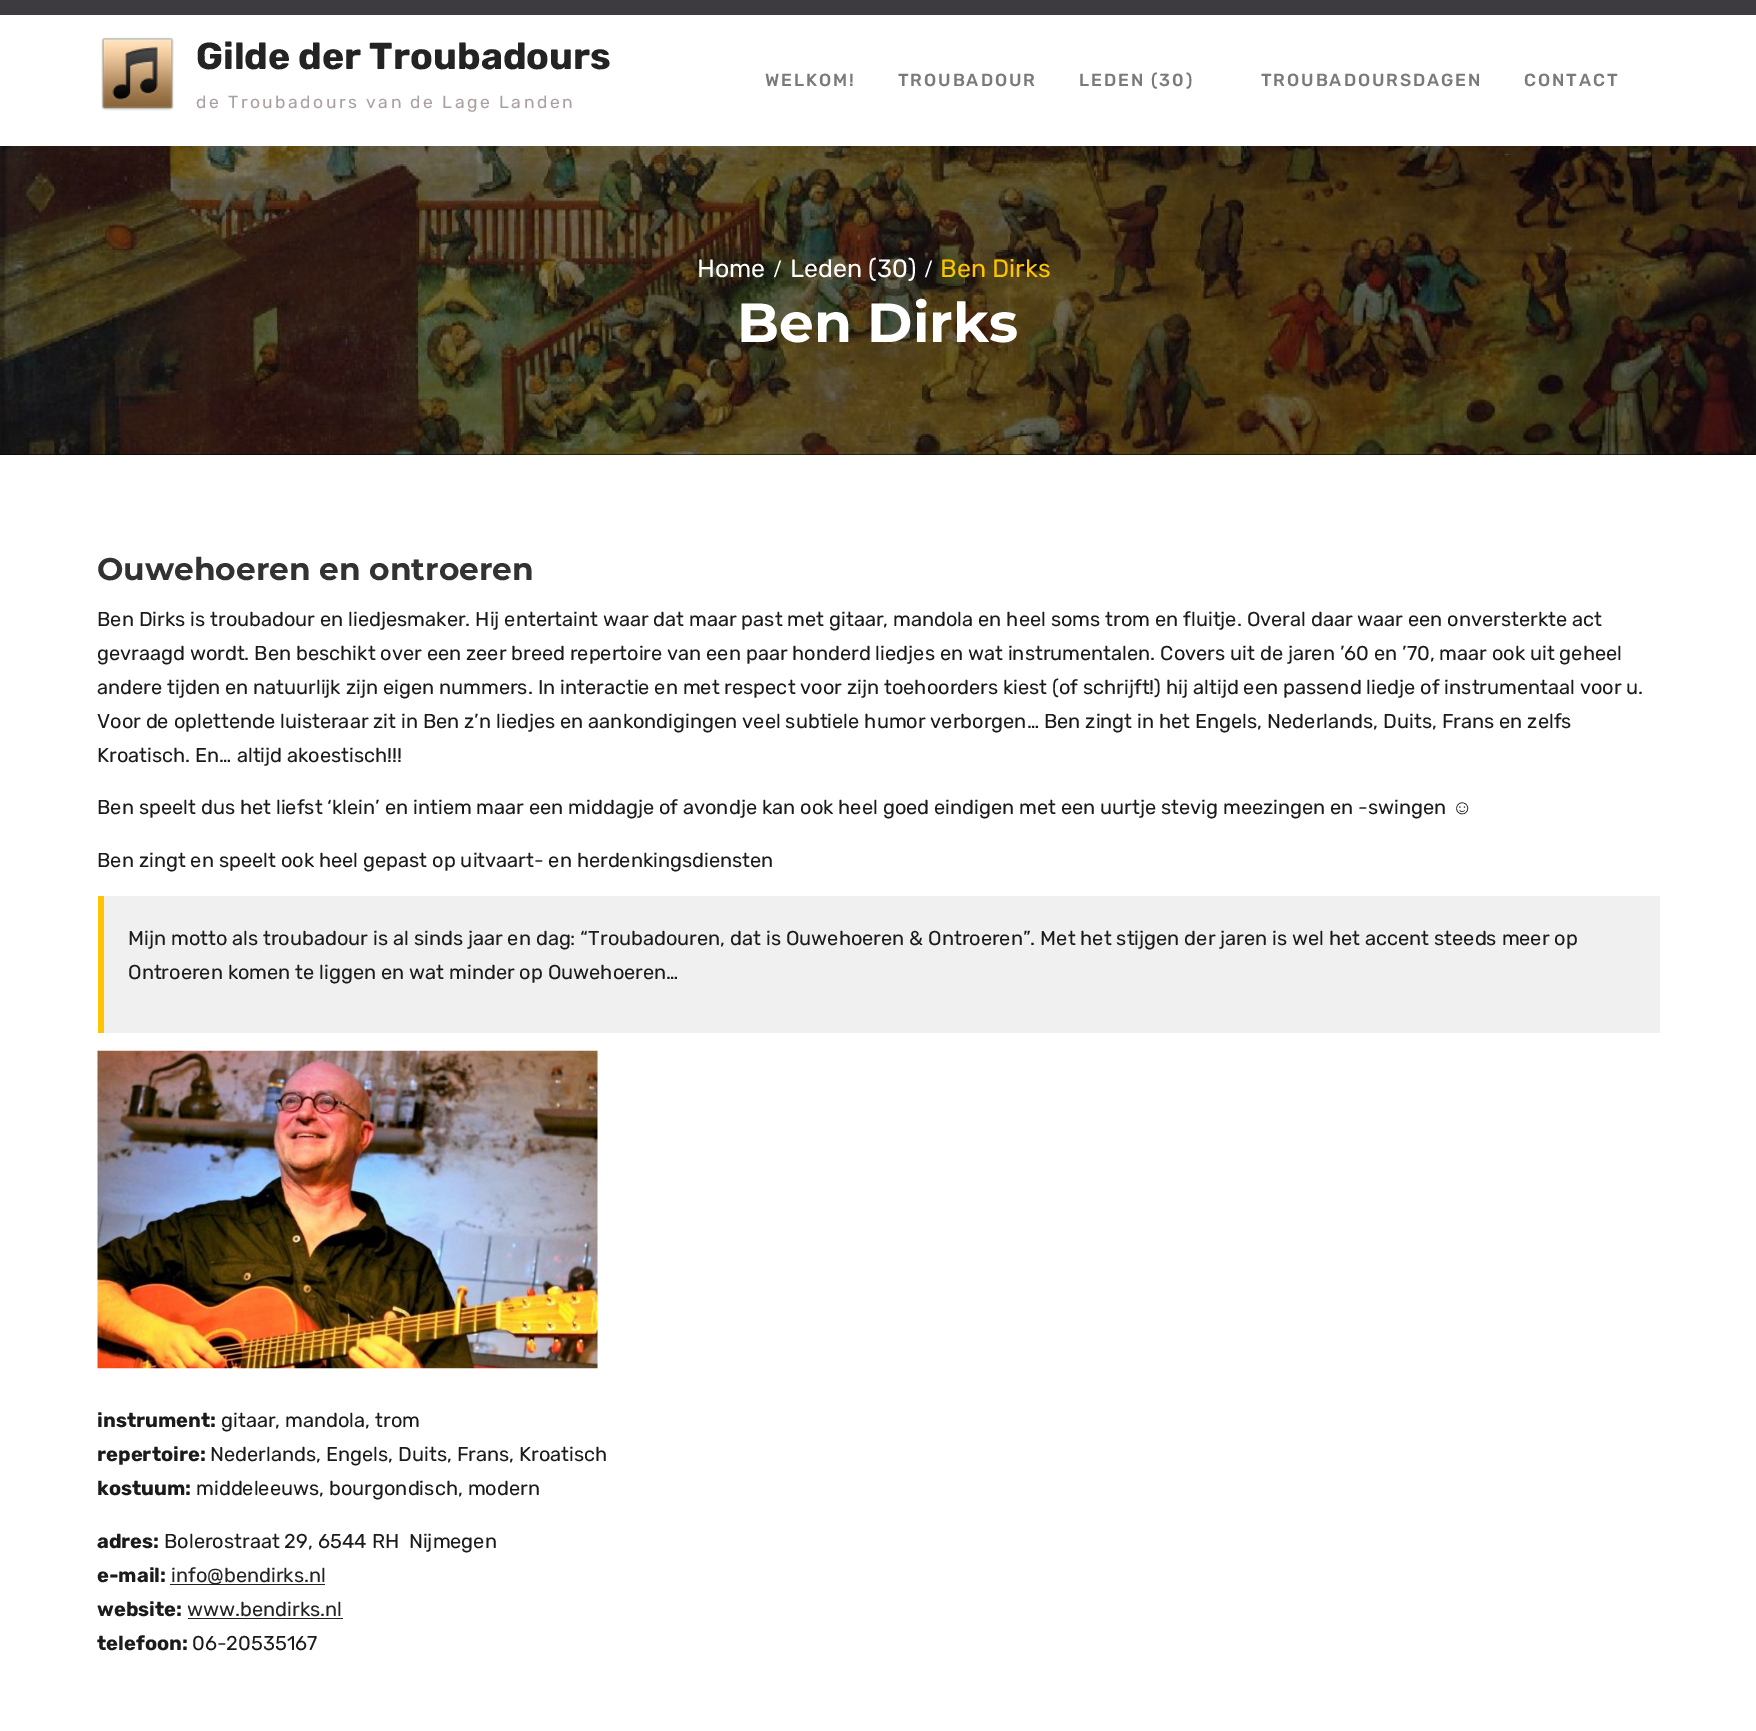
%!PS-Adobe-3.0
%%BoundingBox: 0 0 1756 1731
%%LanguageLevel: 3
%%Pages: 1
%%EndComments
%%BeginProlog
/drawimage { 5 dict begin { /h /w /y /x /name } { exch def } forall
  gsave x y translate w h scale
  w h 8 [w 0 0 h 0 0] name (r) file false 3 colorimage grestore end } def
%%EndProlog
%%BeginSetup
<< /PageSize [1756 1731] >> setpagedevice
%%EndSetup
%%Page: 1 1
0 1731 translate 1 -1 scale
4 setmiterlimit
1 setgray
0 0 1756 1731 rectfill
0.239 0.231 0.251 setrgbcolor
0 0 1756 15 rectfill
(images/1.raw) 101 37 73 74 drawimage
0 setgray
0 454 1756 1 rectfill
(images/2.raw) 0 146 1756 309 drawimage
0.941 setgray
104 896 1556 137 rectfill
1 0.765 0 setrgbcolor
98 896 6 137 rectfill
(images/3.raw) 97 1050 501 319 drawimage
0.137 setgray
170 1584 155 1 rectfill
188 1618 155 1 rectfill
/Rubik-Bold [37.5 0 0 -37.5 0 0] selectfont
196 69 moveto (Gilde der Troubadours) show
/Rubik-Regular [17.5 0 0 -17.5 0 0] selectfont
0.671 0.627 0.627 setrgbcolor
196 108 moveto 2.5 0 (de Troubadours van de Lage Landen) ashow
/Rubik-Medium [17.5 0 0 -17.5 0 0] selectfont
0.482 0.475 0.475 setrgbcolor
765 86 moveto 1.9 0 (WELKOM!) ashow
898 86 moveto 1.9 0 (TROUBADOUR) ashow
1079 86 moveto 1.9 0 (LEDEN \(30\)) ashow
1261 86 moveto 1.9 0 (TROUBADOURSDAGEN) ashow
1524 86 moveto 1.9 0 (CONTACT) ashow
/Rubik-Regular [25 0 0 -25 0 0] selectfont
1 setgray
697 277 moveto (Home) show
/LiberationSerif-Bold [25 0 0 -25 0 0] selectfont
774 277 moveto (/) show
/Rubik-Regular [25 0 0 -25 0 0] selectfont
790 277 moveto (Leden \(30\)) show
/LiberationSerif-Bold [25 0 0 -25 0 0] selectfont
925 277 moveto (/) show
/Rubik-Regular [25 0 0 -25 0 0] selectfont
1 0.765 0 setrgbcolor
940 277 moveto (Ben Dirks) show
/Montserrat-Bold [55 0 0 -55 0 0] selectfont
1 setgray
737 342 moveto (Ben Dirks) show
/Montserrat-Bold [31.25 0 0 -31.25 0 0] selectfont
0.196 setgray
97 580 moveto (Ouwehoeren en ontroeren) show
/Rubik-Regular [20 0 0 -20 0 0] selectfont
0.106 setgray
97 626 moveto (Ben Dirks is troubadour en liedjesmaker. Hij entertaint waar dat maar past met gitaar, mandola en heel soms trom en fluitje. Overal daar waar een onversterkte act) show
97 660 moveto (gevraagd wordt. Ben beschikt over een zeer breed repertoire van een paar honderd liedjes en wat instrumentalen. Covers uit de jaren ’60 en ’70, maar ook uit geheel) show
97 694 moveto (andere tijden en natuurlijk zijn eigen nummers. In interactie en met respect voor zijn toehoorders kiest \(of schrijft!\) hij altijd een passend liedje of instrumentaal voor u.) show
97 728 moveto (Voor de oplettende luisteraar zit in Ben z’n liedjes en aankondigingen veel subtiele humor verborgen… Ben zingt in het Engels, Nederlands, Duits, Frans en zelfs) show
97 762 moveto (Kroatisch. En… altijd akoestisch!!!) show
97 814 moveto (Ben speelt dus het liefst ‘klein’ en intiem maar een middagje of avondje kan ook heel goed eindigen met een uurtje stevig meezingen en -swingen) show
/LiberationSans-Regular [20 0 0 -20 0 0] selectfont
1452 814 moveto (☺) show
/Rubik-Regular [20 0 0 -20 0 0] selectfont
97 867 moveto (Ben zingt en speelt ook heel gepast op uitvaart- en herdenkingsdiensten) show
128 945 moveto (Mijn motto als troubadour is al sinds jaar en dag: “Troubadouren, dat is Ouwehoeren & Ontroeren”. Met het stijgen der jaren is wel het accent steeds meer op) show
128 979 moveto (Ontroeren komen te liggen en wat minder op Ouwehoeren…) show
/Rubik-Bold [20 0 0 -20 0 0] selectfont
97 1427 moveto (instrument:) show
/Rubik-Regular [20 0 0 -20 0 0] selectfont
221 1427 moveto (gitaar, mandola, trom) show
/Rubik-Bold [20 0 0 -20 0 0] selectfont
97 1461 moveto (repertoire:) show
/Rubik-Regular [20 0 0 -20 0 0] selectfont
210 1461 moveto (Nederlands, Engels, Duits, Frans, Kroatisch) show
/Rubik-Bold [20 0 0 -20 0 0] selectfont
97 1495 moveto (kostuum:) show
/Rubik-Regular [20 0 0 -20 0 0] selectfont
196 1495 moveto (middeleeuws, bourgondisch, modern) show
/Rubik-Bold [20 0 0 -20 0 0] selectfont
97 1548 moveto (adres:) show
/Rubik-Regular [20 0 0 -20 0 0] selectfont
164 1548 moveto (Bolerostraat 29, 6544 RH  Nijmegen) show
/Rubik-Bold [20 0 0 -20 0 0] selectfont
97 1582 moveto (e-mail:) show
/Rubik-Regular [20 0 0 -20 0 0] selectfont
0.137 setgray
171 1582 moveto (info@bendirks.nl) show
/Rubik-Bold [20 0 0 -20 0 0] selectfont
0.106 setgray
97 1616 moveto (website:) show
/Rubik-Regular [20 0 0 -20 0 0] selectfont
0.137 setgray
187 1616 moveto (www.bendirks.nl) show
/Rubik-Bold [20 0 0 -20 0 0] selectfont
0.106 setgray
97 1650 moveto (telefoon:) show
/Rubik-Regular [20 0 0 -20 0 0] selectfont
192 1650 moveto (06-20535167) show
showpage
%%EOF
